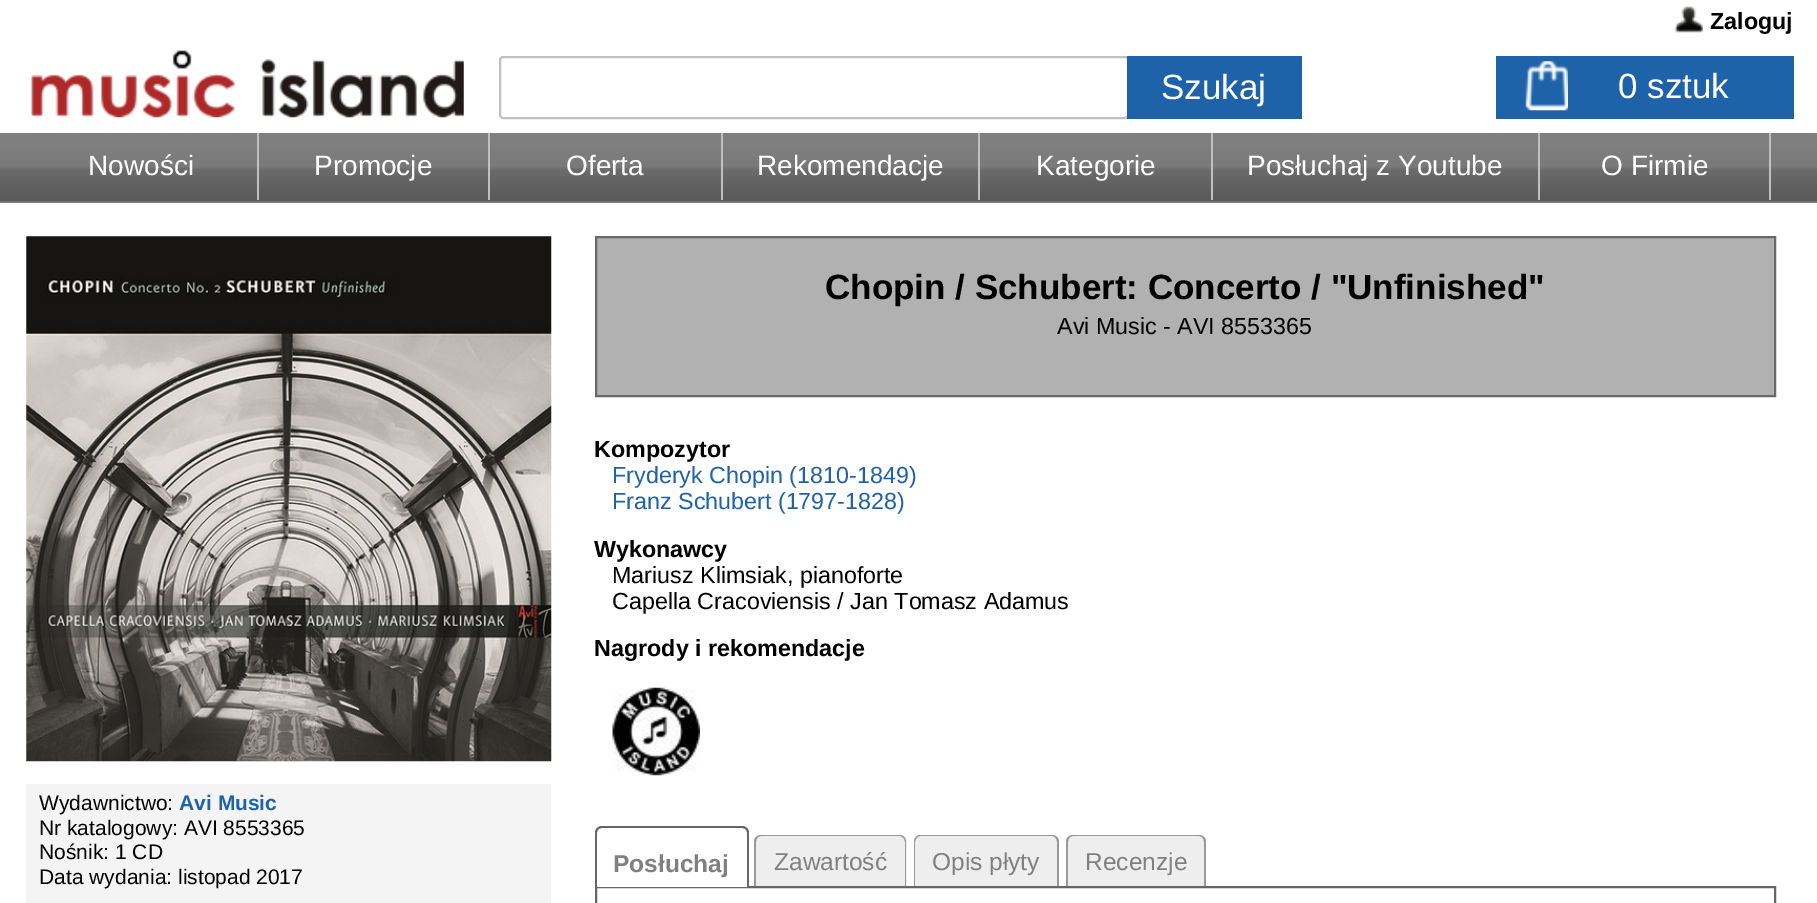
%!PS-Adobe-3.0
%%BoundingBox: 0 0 1817 903
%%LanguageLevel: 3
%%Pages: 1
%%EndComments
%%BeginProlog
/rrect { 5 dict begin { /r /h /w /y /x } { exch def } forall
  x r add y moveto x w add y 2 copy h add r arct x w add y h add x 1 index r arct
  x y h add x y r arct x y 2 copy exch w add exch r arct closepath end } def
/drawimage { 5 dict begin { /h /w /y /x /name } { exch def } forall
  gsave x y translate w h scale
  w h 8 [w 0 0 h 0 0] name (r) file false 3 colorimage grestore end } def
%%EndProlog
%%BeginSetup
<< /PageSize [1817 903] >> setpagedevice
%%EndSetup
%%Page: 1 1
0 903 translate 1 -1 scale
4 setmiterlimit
1 setgray
0 0 1817 903 rectfill
(images/1.raw) 1674 6 29 27 drawimage
(images/2.raw) 31 50 433 68 drawimage
0.753 setgray
2 setlinewidth
500 57 628 61 3 rrect stroke
0.118 0.384 0.667 setrgbcolor
1127 56 175 63 rectfill
1496 56 298 63 rectfill
(images/3.raw) 1525 61 43 50 drawimage
(images/4.raw) 0 133 1817 70 drawimage
0.753 setgray
257 133 2 67 rectfill
488 133 2 67 rectfill
721 133 2 67 rectfill
978 133 2 67 rectfill
1211 133 2 67 rectfill
1538 133 2 67 rectfill
1769 133 2 67 rectfill
0.694 setgray
newpath 596 237 moveto 1775 237 lineto 1775 396 lineto 596 396 lineto closepath gsave fill grestore
0.412 setgray
stroke
(images/5.raw) 26 236 526 526 drawimage
0.957 setgray
26 784 525 119 rectfill
(images/6.raw) 612 687 88 89 drawimage
0.4 setgray
596 887 1179 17 rectstroke
1 setgray
newpath 602 826 moveto 742 826 lineto 746 826 749 829 749 833 curveto 749 887 lineto 595 887 lineto 595 833 lineto 595 829 598 826 602 826 curveto closepath fill
0.4 setgray
newpath 602 826 moveto 742 826 lineto 746 826 749 829 749 833 curveto 749 887 lineto 595 887 lineto 595 833 lineto 595 829 598 826 602 826 curveto closepath 602 828 moveto 742 828 lineto 745 828 747 830 747 833 curveto 747 887 lineto 597 887 lineto 597 833 lineto 597 830 599 828 602 828 curveto closepath eofill
0.933 setgray
newpath 761 835 moveto 900 835 lineto 904 835 907 838 907 842 curveto 907 886 lineto 754 886 lineto 754 842 lineto 754 838 757 835 761 835 curveto closepath fill
0.6 setgray
newpath 761 835 moveto 900 835 lineto 903 835 906 838 906 842 curveto 906 886 lineto 754 886 lineto 754 842 lineto 754 838 757 835 761 835 curveto closepath 761 836 moveto 900 836 lineto 902 836 905 839 905 842 curveto 905 886 lineto 756 886 lineto 756 842 lineto 756 839 758 836 761 836 curveto closepath eofill
0.933 setgray
newpath 921 835 moveto 1052 835 lineto 1056 835 1059 838 1059 842 curveto 1059 886 lineto 914 886 lineto 914 842 lineto 914 838 917 835 921 835 curveto closepath fill
0.6 setgray
newpath 920 835 moveto 1052 835 lineto 1056 835 1059 838 1059 842 curveto 1059 886 lineto 914 886 lineto 914 842 lineto 914 838 917 835 920 835 curveto closepath 920 836 moveto 1052 836 lineto 1055 836 1057 839 1057 842 curveto 1057 886 lineto 915 886 lineto 915 842 lineto 915 839 918 836 920 836 curveto closepath eofill
0.933 setgray
newpath 1073 835 moveto 1199 835 lineto 1203 835 1206 838 1206 842 curveto 1206 886 lineto 1066 886 lineto 1066 842 lineto 1066 838 1069 835 1073 835 curveto closepath fill
0.6 setgray
newpath 1073 835 moveto 1199 835 lineto 1203 835 1206 838 1206 842 curveto 1206 886 lineto 1066 886 lineto 1066 842 lineto 1066 838 1069 835 1073 835 curveto closepath 1073 836 moveto 1199 836 lineto 1202 836 1204 839 1204 842 curveto 1204 886 lineto 1068 886 lineto 1068 842 lineto 1068 839 1070 836 1073 836 curveto closepath eofill
/LiberationSans-Bold [23.3 0 0 -23.3 0 0] selectfont
0 setgray
1710 29 moveto (Zaloguj) show
/LiberationSans-Regular [35 0 0 -35 0 0] selectfont
1 setgray
1161 99 moveto (Szukaj) show
1618 98 moveto (0 sztuk) show
/LiberationSans-Regular [28 0 0 -28 0 0] selectfont
88 175 moveto (Nowości) show
314 175 moveto (Promocje) show
566 175 moveto (Oferta) show
757 175 moveto (Rekomendacje) show
1036 175 moveto (Kategorie) show
1247 175 moveto (Posłuchaj z Youtube) show
1601 175 moveto (O Firmie) show
/LiberationSans-Bold [35 0 0 -35 0 0] selectfont
0 setgray
825 299 moveto (Chopin / Schubert: Concerto / "Unfinished") show
/LiberationSans-Regular [23.3 0 0 -23.3 0 0] selectfont
1057 334 moveto (Avi Music - AVI 8553365) show
/LiberationSans-Regular [21 0 0 -21 0 0] selectfont
39 810 moveto (Wydawnictwo:) show
/LiberationSans-Bold [21 0 0 -21 0 0] selectfont
0.118 0.384 0.667 setrgbcolor
179 810 moveto (Avi Music) show
/LiberationSans-Regular [21 0 0 -21 0 0] selectfont
0 setgray
39 835 moveto (Nr katalogowy: AVI 8553365) show
39 859 moveto (Nośnik: 1 CD) show
39 884 moveto (Data wydania: listopad 2017) show
/LiberationSans-Bold [23.3 0 0 -23.3 0 0] selectfont
594 457 moveto (Kompozytor) show
/LiberationSans-Regular [23.3 0 0 -23.3 0 0] selectfont
0.118 0.384 0.667 setrgbcolor
612 483 moveto (Fryderyk Chopin \(1810-1849\)) show
612 509 moveto (Franz Schubert \(1797-1828\)) show
/LiberationSans-Bold [23.3 0 0 -23.3 0 0] selectfont
0 setgray
594 557 moveto (Wykonawcy) show
/LiberationSans-Regular [23.3 0 0 -23.3 0 0] selectfont
612 583 moveto (Mariusz Klimsiak, pianoforte) show
612 609 moveto (Capella Cracoviensis / Jan Tomasz Adamus) show
/LiberationSans-Bold [23.3 0 0 -23.3 0 0] selectfont
594 656 moveto (Nagrody i rekomendacje) show
/LiberationSans-Bold [24.5 0 0 -24.5 0 0] selectfont
0.502 setgray
613 872 moveto (Posłuchaj) show
/LiberationSans-Regular [24.5 0 0 -24.5 0 0] selectfont
774 870 moveto (Zawartość) show
932 870 moveto (Opis płyty) show
1085 870 moveto (Recenzje) show
showpage
%%EOF
